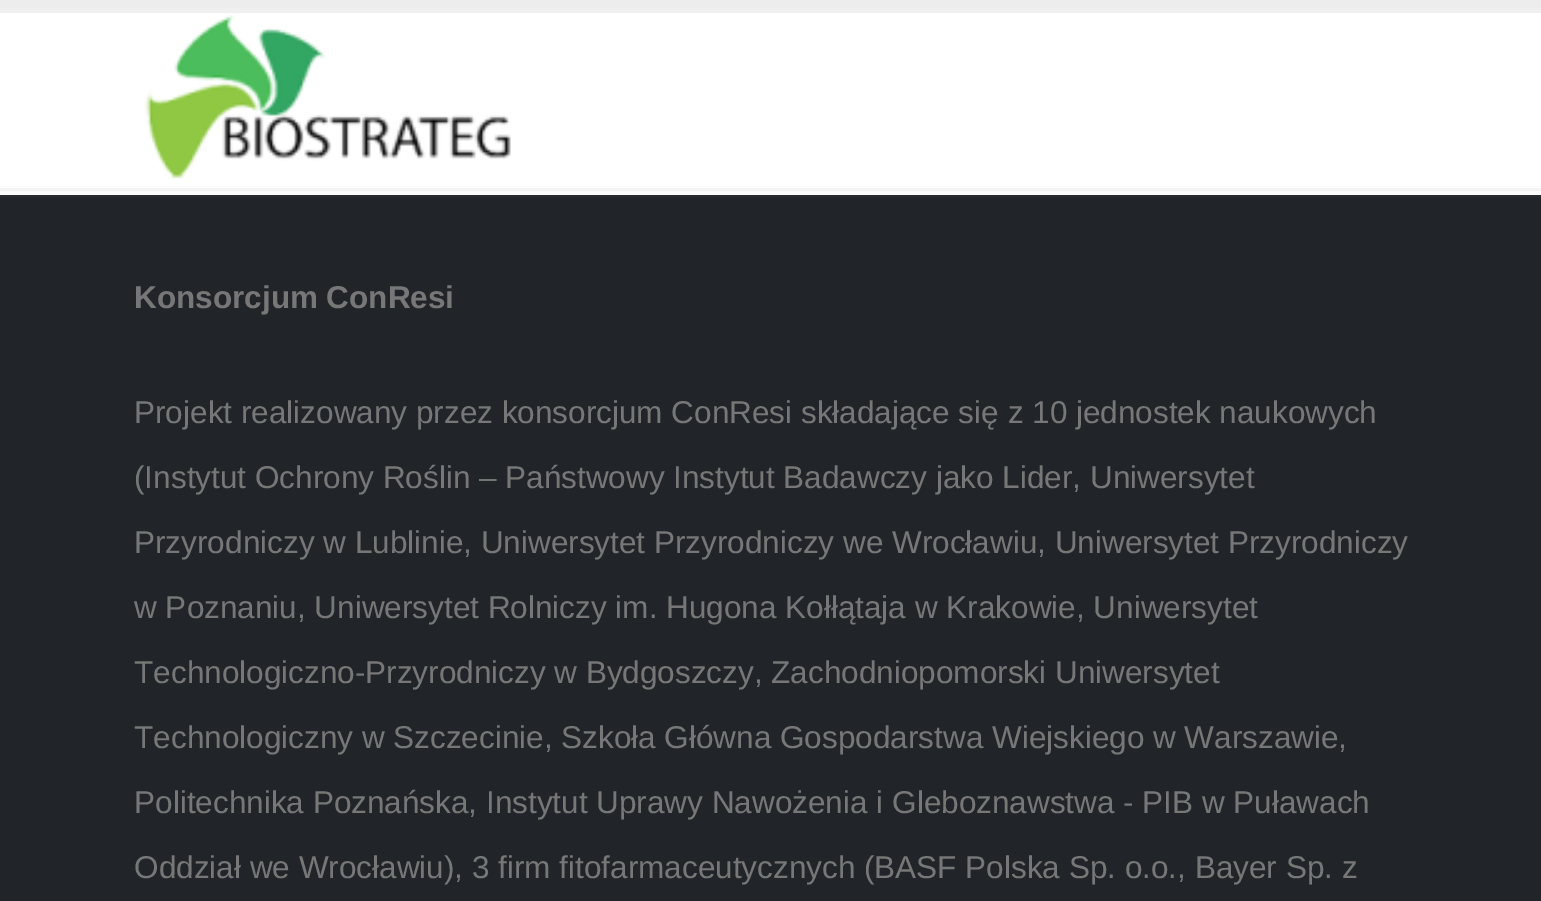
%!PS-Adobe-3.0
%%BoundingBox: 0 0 1541 901
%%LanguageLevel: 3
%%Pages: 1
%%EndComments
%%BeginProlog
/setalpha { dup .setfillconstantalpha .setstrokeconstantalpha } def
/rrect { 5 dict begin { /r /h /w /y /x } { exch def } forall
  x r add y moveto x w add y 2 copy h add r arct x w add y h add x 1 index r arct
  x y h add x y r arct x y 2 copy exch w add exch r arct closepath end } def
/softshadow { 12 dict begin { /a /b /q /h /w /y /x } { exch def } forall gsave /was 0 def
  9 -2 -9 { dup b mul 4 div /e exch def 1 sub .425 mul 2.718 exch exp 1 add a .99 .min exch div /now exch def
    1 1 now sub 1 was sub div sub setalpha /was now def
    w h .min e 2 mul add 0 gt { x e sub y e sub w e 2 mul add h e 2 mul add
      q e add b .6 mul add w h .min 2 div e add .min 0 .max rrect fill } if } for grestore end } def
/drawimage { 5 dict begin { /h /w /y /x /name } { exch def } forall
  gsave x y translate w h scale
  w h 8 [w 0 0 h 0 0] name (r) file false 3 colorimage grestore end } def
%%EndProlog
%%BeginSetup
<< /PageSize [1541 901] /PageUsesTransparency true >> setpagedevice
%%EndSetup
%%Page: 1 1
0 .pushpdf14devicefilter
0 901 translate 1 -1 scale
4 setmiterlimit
1 setgray
0 0 1541 901 rectfill
0.129 0.145 0.161 setrgbcolor
0 195 1541 706 rectfill
0.918 setgray
0 0 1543 190 0 4 0.5 softshadow
1 setgray
0 13 1541 177 rectfill
0.929 setgray
0 0 1541 8 rectfill
0.5 setalpha
0.918 setgray
0 188 1541 3 rectfill
1 setalpha
0.941 setgray
0 8 1541 5 rectfill
(images/1.raw) 144 15 367 164 drawimage
/LiberationSans-Bold [31.5 0 0 -31.5 0 0] selectfont
0.467 setgray
134 308 moveto (Konsorcjum ConResi) show
/LiberationSans-Regular [31.5 0 0 -31.5 0 0] selectfont
134 423 moveto (Projekt realizowany przez konsorcjum ConResi składające się z 10 jednostek naukowych) show
134 488 moveto (\(Instytut Ochrony Roślin – Państwowy Instytut Badawczy jako Lider, Uniwersytet) show
134 553 moveto (Przyrodniczy w Lublinie, Uniwersytet Przyrodniczy we Wrocławiu, Uniwersytet Przyrodniczy) show
134 618 moveto (w Poznaniu, Uniwersytet Rolniczy im. Hugona Kołłątaja w Krakowie, Uniwersytet) show
134 683 moveto (Technologiczno-Przyrodniczy w Bydgoszczy, Zachodniopomorski Uniwersytet) show
134 748 moveto (Technologiczny w Szczecinie, Szkoła Główna Gospodarstwa Wiejskiego w Warszawie,) show
134 813 moveto (Politechnika Poznańska, Instytut Uprawy Nawożenia i Gleboznawstwa - PIB w Puławach) show
134 878 moveto (Oddział we Wrocławiu\), 3 firm fitofarmaceutycznych \(BASF Polska Sp. o.o., Bayer Sp. z) show
.poppdf14devicefilter showpage
%%EOF
